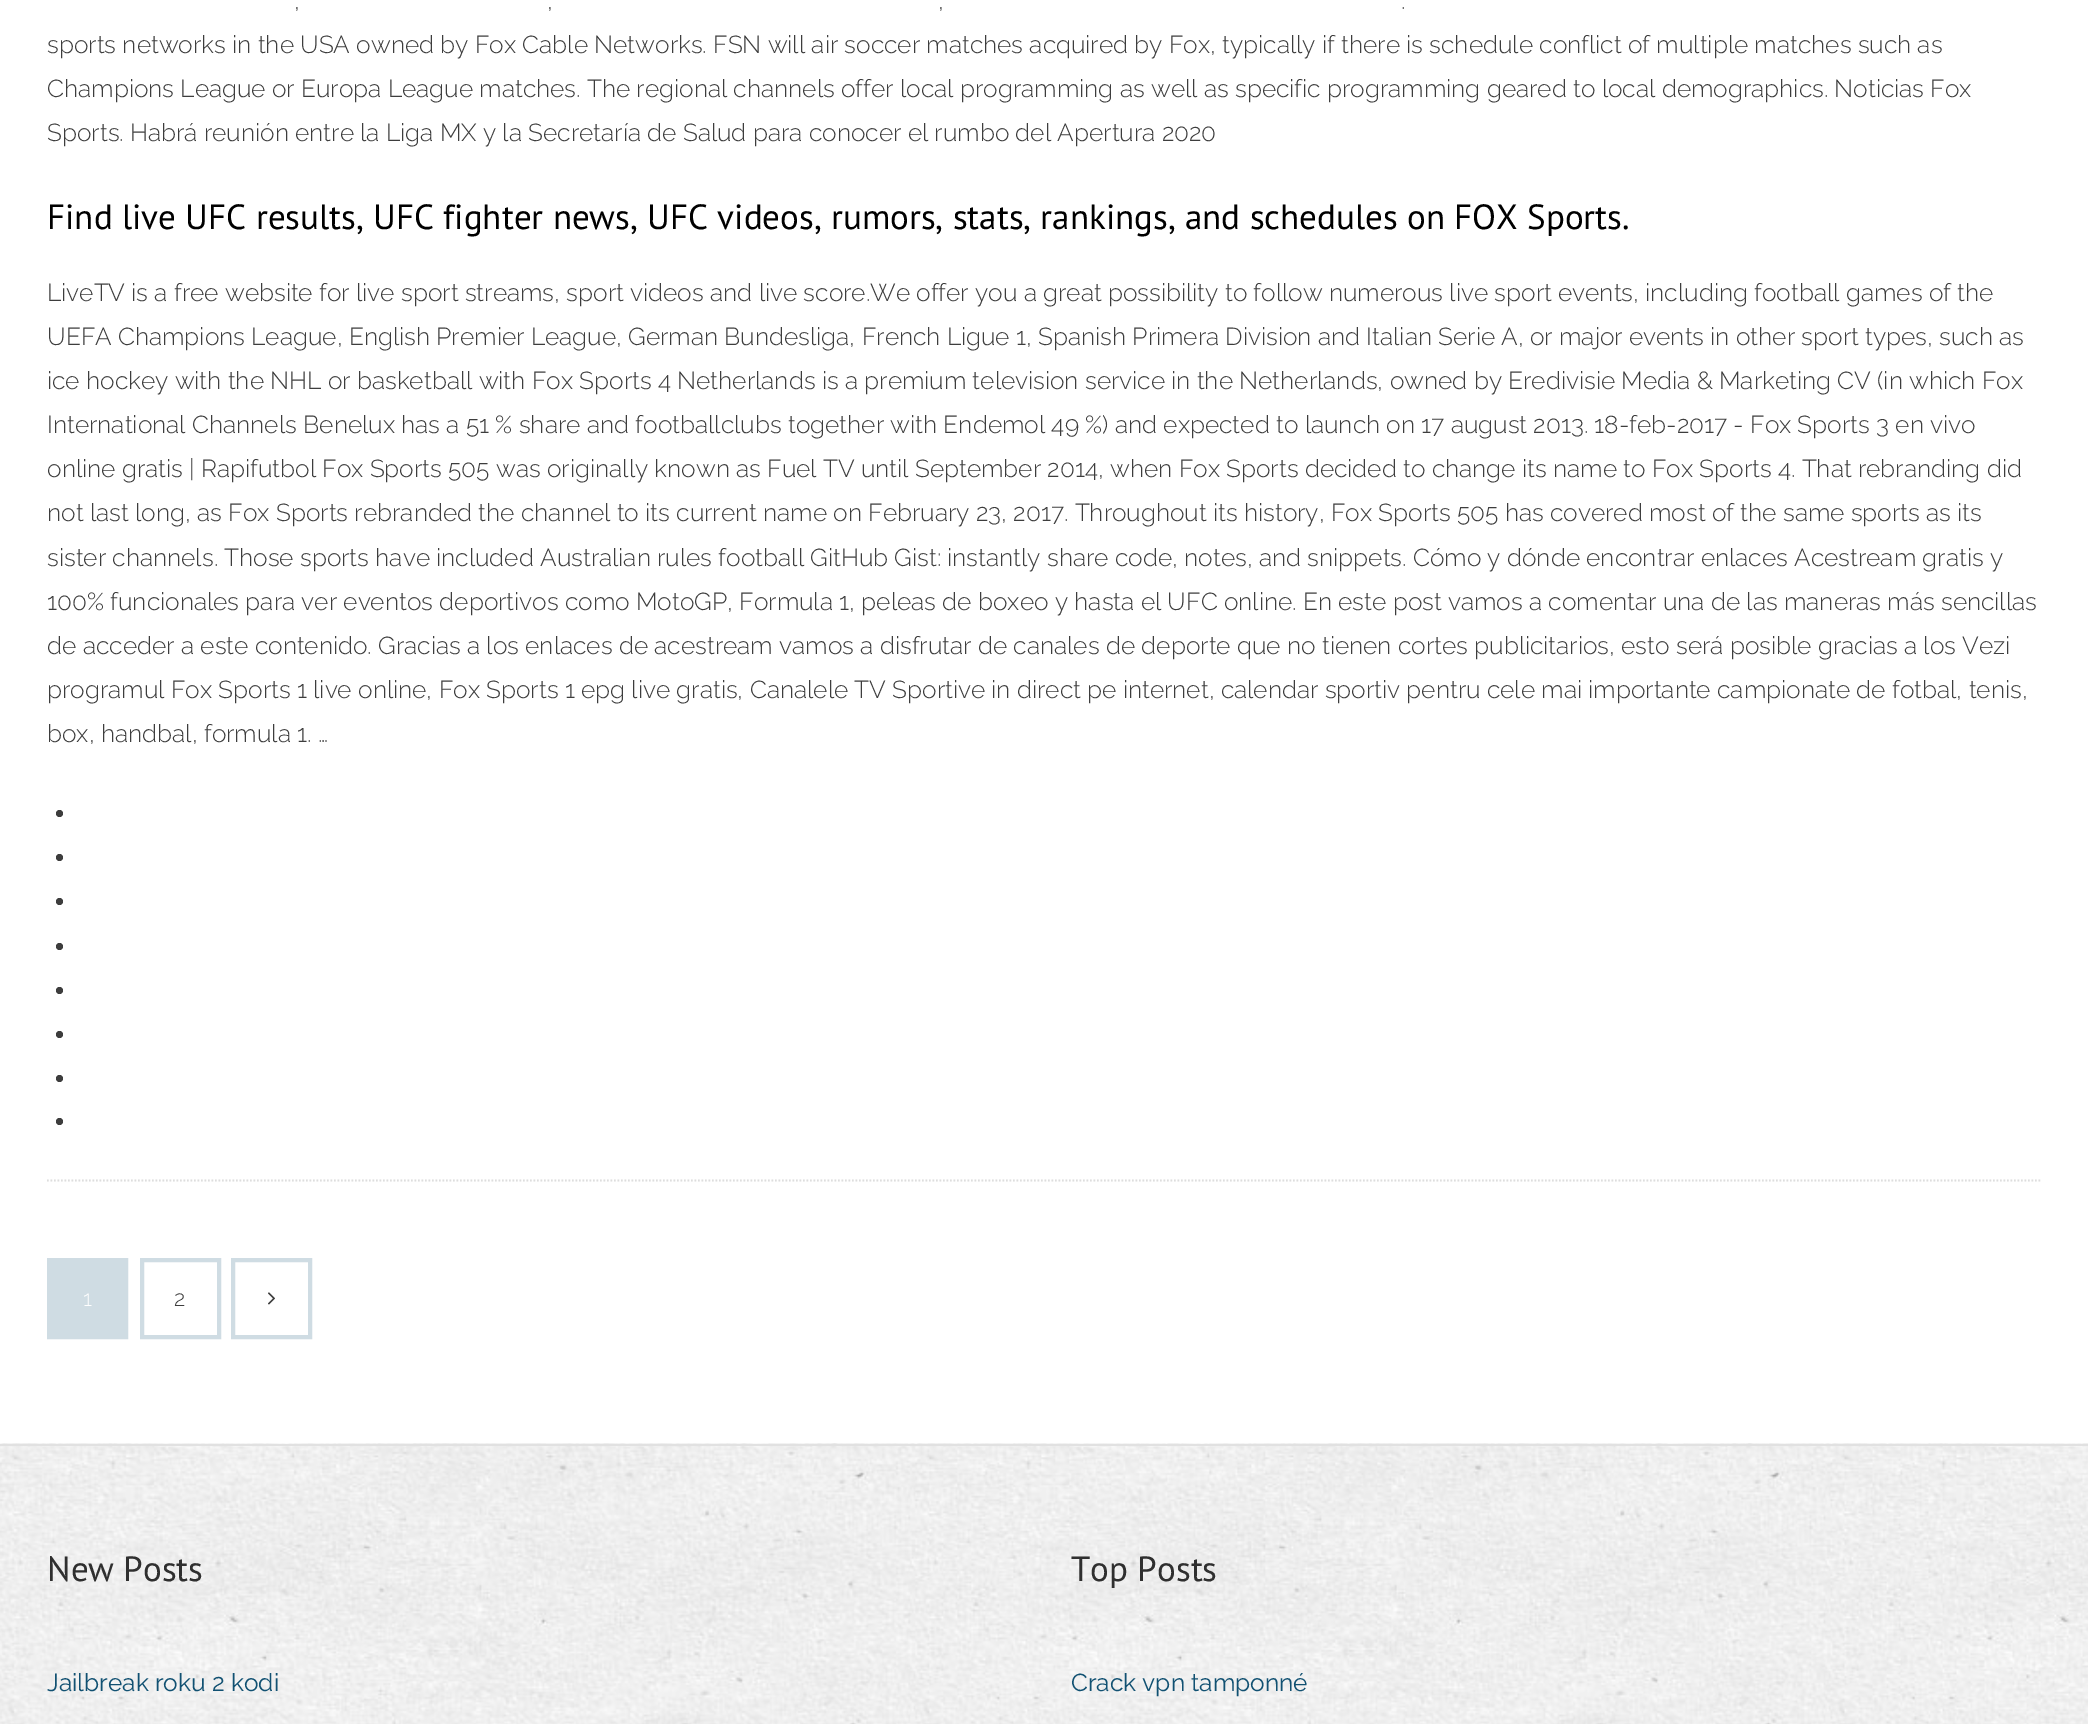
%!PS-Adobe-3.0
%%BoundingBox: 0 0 2088 1724
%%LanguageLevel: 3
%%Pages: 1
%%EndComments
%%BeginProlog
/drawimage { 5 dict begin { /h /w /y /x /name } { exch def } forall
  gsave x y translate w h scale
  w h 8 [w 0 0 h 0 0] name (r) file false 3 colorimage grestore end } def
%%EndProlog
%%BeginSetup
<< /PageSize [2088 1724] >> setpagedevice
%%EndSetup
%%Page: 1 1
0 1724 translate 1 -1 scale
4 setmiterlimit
1 setgray
0 0 2088 1724 rectfill
0.867 setgray
1.8 setlinewidth
[1.75 1.75] 0 setdash
newpath 47 1180.5 moveto 2042 1180.5 lineto stroke
0.239 setgray
newpath 59.5 813.5 3.5 0 360 arc closepath fill
newpath 59.5 857.5 3.5 0 360 arc closepath fill
newpath 59.5 901.5 3.5 0 360 arc closepath fill
newpath 59.5 946.5 3.5 0 360 arc closepath fill
newpath 59.5 990.5 3.5 0 360 arc closepath fill
newpath 59.5 1034.5 3.5 0 360 arc closepath fill
newpath 59.5 1078.5 3.5 0 360 arc closepath fill
newpath 59.5 1121.5 3.5 0 360 arc closepath fill
0.812 0.863 0.89 setrgbcolor
4 setlinewidth
[] 0 setdash
49 1260 77 77 rectstroke
51 1262 73 73 rectfill
142 1260 77 77 rectstroke
233 1260 77 77 rectstroke
(images/1.raw) 268 1292 7 13 drawimage
(images/2.raw) 0 1443 2088 281 drawimage
0.882 setgray
0 1444 2088 2 rectfill
/Raleway-Light [24.5 0 0 -24.5 0 0] selectfont
0.239 setgray
294 9 moveto (,) show
547 9 moveto (,) show
938 9 moveto (,) show
1401 9 moveto (.) show
47 53 moveto (sports networks in the USA owned by Fox Cable Networks. FSN will air soccer matches acquired by Fox, typically if there is schedule conflict of multiple matches such as) show
47 97 moveto (Champions League or Europa League matches. The regional channels offer local programming as well as specific programming geared to local demographics. Noticias Fox) show
47 141 moveto (Sports. Habrá reunión entre la Liga MX y la Secretaría de Salud para conocer el rumbo del Apertura 2020) show
/PTSans-Regular [35 0 0 -35 0 0] selectfont
0 setgray
47 229 moveto (Find live UFC results, UFC fighter news, UFC videos, rumors, stats, rankings, and schedules on FOX Sports.) show
/Raleway-Light [24.5 0 0 -24.5 0 0] selectfont
0.239 setgray
47 301 moveto (LiveTV is a free website for live sport streams, sport videos and live score.We offer you a great possibility to follow numerous live sport events, including football games of the) show
47 345 moveto (UEFA Champions League, English Premier League, German Bundesliga, French Ligue 1, Spanish Primera Division and Italian Serie A, or major events in other sport types, such as) show
47 389 moveto (ice hockey with the NHL or basketball with Fox Sports 4 Netherlands is a premium television service in the Netherlands, owned by Eredivisie Media & Marketing CV \(in which Fox) show
47 433 moveto (International Channels Benelux has a 51 % share and footballclubs together with Endemol 49 %\) and expected to launch on 17 august 2013. 18-feb-2017 - Fox Sports 3 en vivo) show
47 477 moveto (online gratis | Rapifutbol Fox Sports 505 was originally known as Fuel TV until September 2014, when Fox Sports decided to change its name to Fox Sports 4. That rebranding did) show
47 521 moveto (not last long, as Fox Sports rebranded the channel to its current name on February 23, 2017. Throughout its history, Fox Sports 505 has covered most of the same sports as its) show
47 566 moveto (sister channels. Those sports have included Australian rules football GitHub Gist: instantly share code, notes, and snippets. Cómo y dónde encontrar enlaces Acestream gratis y) show
47 610 moveto (100% funcionales para ver eventos deportivos como MotoGP, Formula 1, peleas de boxeo y hasta el UFC online. En este post vamos a comentar una de las maneras más sencillas) show
47 654 moveto (de acceder a este contenido. Gracias a los enlaces de acestream vamos a disfrutar de canales de deporte que no tienen cortes publicitarios, esto será posible gracias a los Vezi) show
47 698 moveto (programul Fox Sports 1 live online, Fox Sports 1 epg live gratis, Canalele TV Sportive in direct pe internet, calendar sportiv pentru cele mai importante campionate de fotbal, tenis,) show
47 742 moveto (box, handbal, formula 1. …) show
/Raleway-Light [22 0 0 -22 0 0] selectfont
1 setgray
83 1306 moveto (1) show
0.239 setgray
174 1306 moveto (2) show
/PTSans-Regular [35 0 0 -35 0 0] selectfont
0.184 setgray
47 1581 moveto (New Posts) show
/Raleway-Regular [24.5 0 0 -24.5 0 0] selectfont
0.067 0.318 0.447 setrgbcolor
47 1691 moveto (Jailbreak roku 2 kodi) show
/PTSans-Regular [35 0 0 -35 0 0] selectfont
0.184 setgray
1071 1581 moveto (Top Posts) show
/Raleway-Regular [24.5 0 0 -24.5 0 0] selectfont
0.067 0.318 0.447 setrgbcolor
1071 1691 moveto (Crack vpn tamponné) show
showpage
%%EOF
